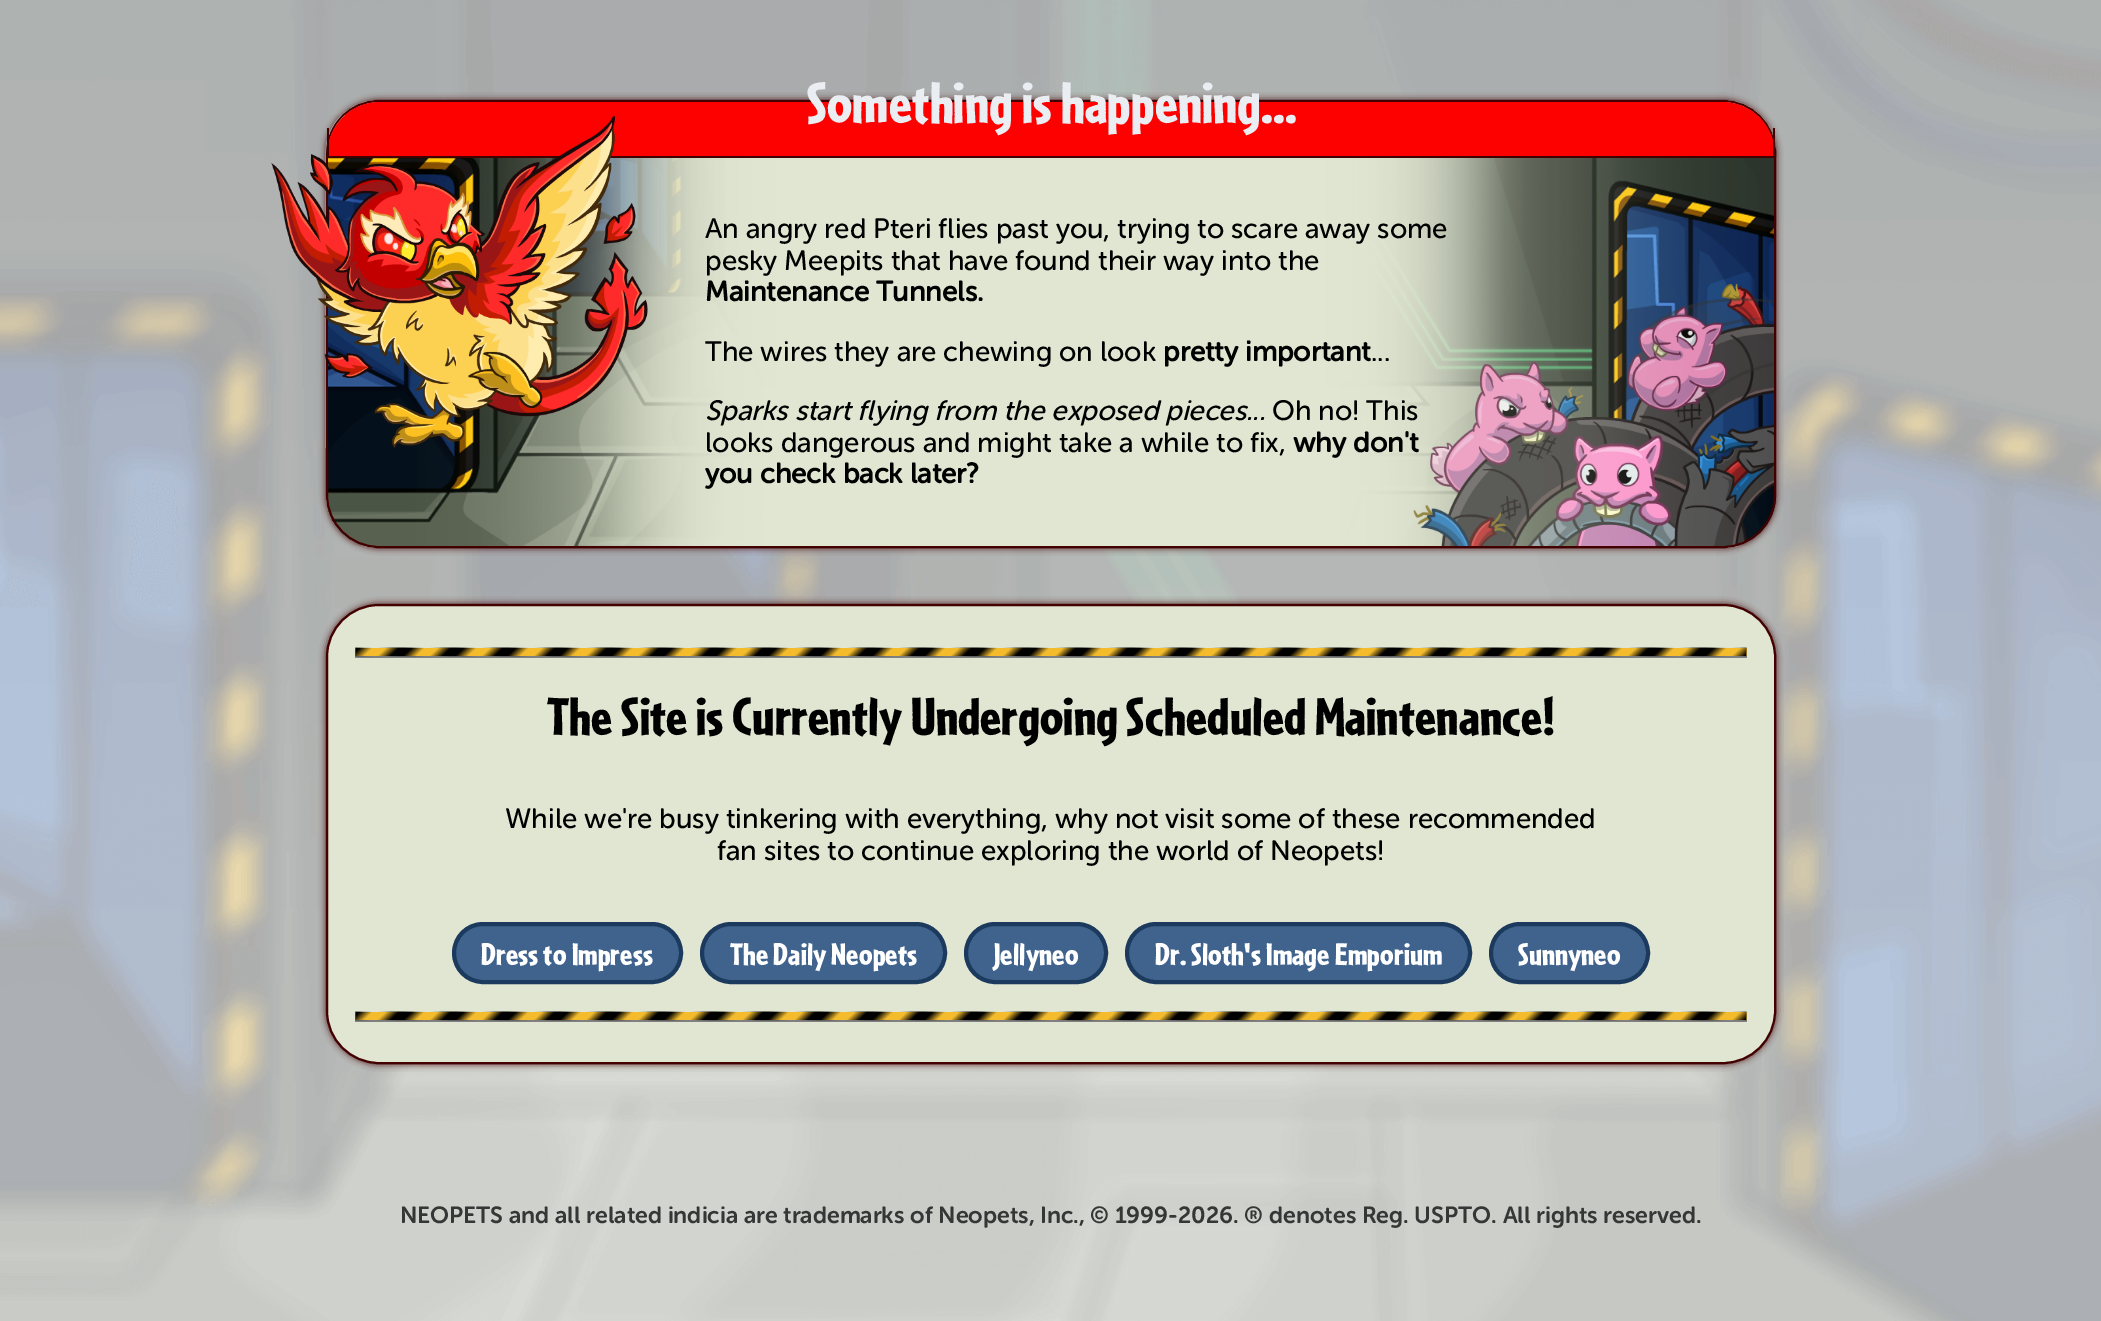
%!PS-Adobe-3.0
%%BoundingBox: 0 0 2101 1321
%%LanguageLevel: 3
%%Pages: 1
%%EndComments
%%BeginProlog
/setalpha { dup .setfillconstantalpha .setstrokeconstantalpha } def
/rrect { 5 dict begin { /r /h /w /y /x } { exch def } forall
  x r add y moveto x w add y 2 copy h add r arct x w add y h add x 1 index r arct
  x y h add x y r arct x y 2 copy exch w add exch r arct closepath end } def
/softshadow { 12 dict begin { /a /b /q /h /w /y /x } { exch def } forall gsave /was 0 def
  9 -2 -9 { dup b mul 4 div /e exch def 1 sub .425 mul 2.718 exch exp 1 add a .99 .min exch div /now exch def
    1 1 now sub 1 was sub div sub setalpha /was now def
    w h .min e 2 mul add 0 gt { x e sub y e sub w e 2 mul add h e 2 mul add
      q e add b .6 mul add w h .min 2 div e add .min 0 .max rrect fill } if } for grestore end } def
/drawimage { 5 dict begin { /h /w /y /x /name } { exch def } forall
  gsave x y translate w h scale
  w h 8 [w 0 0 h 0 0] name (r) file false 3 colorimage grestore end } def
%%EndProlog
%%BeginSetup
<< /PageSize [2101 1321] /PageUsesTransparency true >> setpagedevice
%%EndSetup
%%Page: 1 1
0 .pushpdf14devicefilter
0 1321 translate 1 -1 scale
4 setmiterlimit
1 setgray
0 0 2101 1321 rectfill
(images/1.raw) 0 0 2101 1321 drawimage
0.259 0 0 setrgbcolor
326 100 1450 448 53 3.5 1 softshadow
0.882 0.902 0.824 setrgbcolor
326 100 1450 448 53 rrect fill
(images/2.raw) 327 157 1450 389 drawimage
0.259 0 0 setrgbcolor
2 setlinewidth
327 101 1448 446 52 rrect stroke
0.992 0 0 setrgbcolor
newpath 380 102 moveto 1722 102 lineto 1751.5 102 1775 125.5 1775 155 curveto 1775 158 lineto 327 158 lineto 327 155 lineto 327 125.5 350.5 102 380 102 curveto closepath fill
0.259 0 0 setrgbcolor
1773 128 2 30 rectfill
327 156 1448 2 rectfill
327 128 2 30 rectfill
(images/3.raw) 271 115 377 333 drawimage
326 604 1450 460 53 3.5 1 softshadow
0.882 0.902 0.824 setrgbcolor
327 605 1448 458 52 rrect gsave fill grestore
0.259 0 0 setrgbcolor
stroke
0.502 setgray
newpath 355 649 moveto 355 658 lineto 1747 658 lineto 1747 649 lineto 1746 649 lineto 1746 656 lineto 355 656 lineto closepath fill
0.957 0.737 0.176 setrgbcolor
355 648 1392 8 rectfill
(images/4.raw) 355 647 1392 10 drawimage
0.247 0.388 0.553 setrgbcolor
454 924 227 58 29 rrect gsave fill grestore
0.106 0.227 0.369 setrgbcolor
4 setlinewidth
stroke
0.247 0.388 0.553 setrgbcolor
702 924 243 58 29 rrect gsave fill grestore
0.106 0.227 0.369 setrgbcolor
stroke
0.247 0.388 0.553 setrgbcolor
966 924 140 58 29 rrect gsave fill grestore
0.106 0.227 0.369 setrgbcolor
stroke
0.247 0.388 0.553 setrgbcolor
1127 924 343 58 29 rrect gsave fill grestore
0.106 0.227 0.369 setrgbcolor
stroke
0.247 0.388 0.553 setrgbcolor
1491 924 157 58 29 rrect gsave fill grestore
0.106 0.227 0.369 setrgbcolor
stroke
0.502 setgray
newpath 355 1013 moveto 355 1022 lineto 1747 1022 lineto 1747 1013 lineto 1746 1013 lineto 1746 1020 lineto 355 1020 lineto closepath fill
0.957 0.737 0.176 setrgbcolor
355 1012 1392 8 rectfill
(images/5.raw) 355 1011 1392 10 drawimage
/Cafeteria-Black [60.75 0 0 -60.75 0 0] selectfont
0.918 0.929 0.945 setrgbcolor
807 123 moveto (Something is happening...) show
/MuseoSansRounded-Regular [28 0 0 -28 0 0] selectfont
0 setgray
705 238 moveto (An angry red Pteri flies past you, trying to scare away some) show
705 270 moveto (pesky Meepits that have found their way into the) show
/MuseoSansRounded-Bold [28 0 0 -28 0 0] selectfont
705 301 moveto (Maintenance Tunnels.) show
/MuseoSansRounded-Regular [28 0 0 -28 0 0] selectfont
705 361 moveto (The wires they are chewing on look) show
/MuseoSansRounded-Bold [28 0 0 -28 0 0] selectfont
1163 361 moveto (pretty important) show
/MuseoSansRounded-Regular [28 0 0 -28 0 0] selectfont
1371 361 moveto (...) show
/MuseoSansRounded-Italic [28 0 0 -28 0 0] selectfont
705 420 moveto (Sparks start flying from the exposed pieces...) show
/MuseoSansRounded-Regular [28 0 0 -28 0 0] selectfont
1272 420 moveto (Oh no! This) show
705 452 moveto (looks dangerous and might take a while to fix,) show
/MuseoSansRounded-Bold [28 0 0 -28 0 0] selectfont
1293 452 moveto (why don't) show
705 483 moveto (you check back later?) show
/Cafeteria-Black [56 0 0 -56 0 0] selectfont
547 735 moveto (The Site is Currently Undergoing Scheduled Maintenance!) show
/MuseoSansRounded-Regular [28 0 0 -28 0 0] selectfont
505 828 moveto (While we're busy tinkering with everything, why not visit some of these recommended) show
717 860 moveto (fan sites to continue exploring the world of Neopets!) show
/Cafeteria-Black [32.75 0 0 -32.75 0 0] selectfont
1 setgray
481 965 moveto (Dress to Impress) show
730 965 moveto (The Daily Neopets) show
994 965 moveto (Jellyneo) show
1155 965 moveto (Dr. Sloth's Image Emporium) show
1518 965 moveto (Sunnyneo) show
/MuseoSansRounded-SemiBold [23.33 0 0 -23.33 0 0] selectfont
0.212 setgray
400 1223 moveto (NEOPETS and all related indicia are trademarks of Neopets, Inc., © 1999-2026. ® denotes Reg. USPTO. All rights reserved.) show
.poppdf14devicefilter showpage
%%EOF
